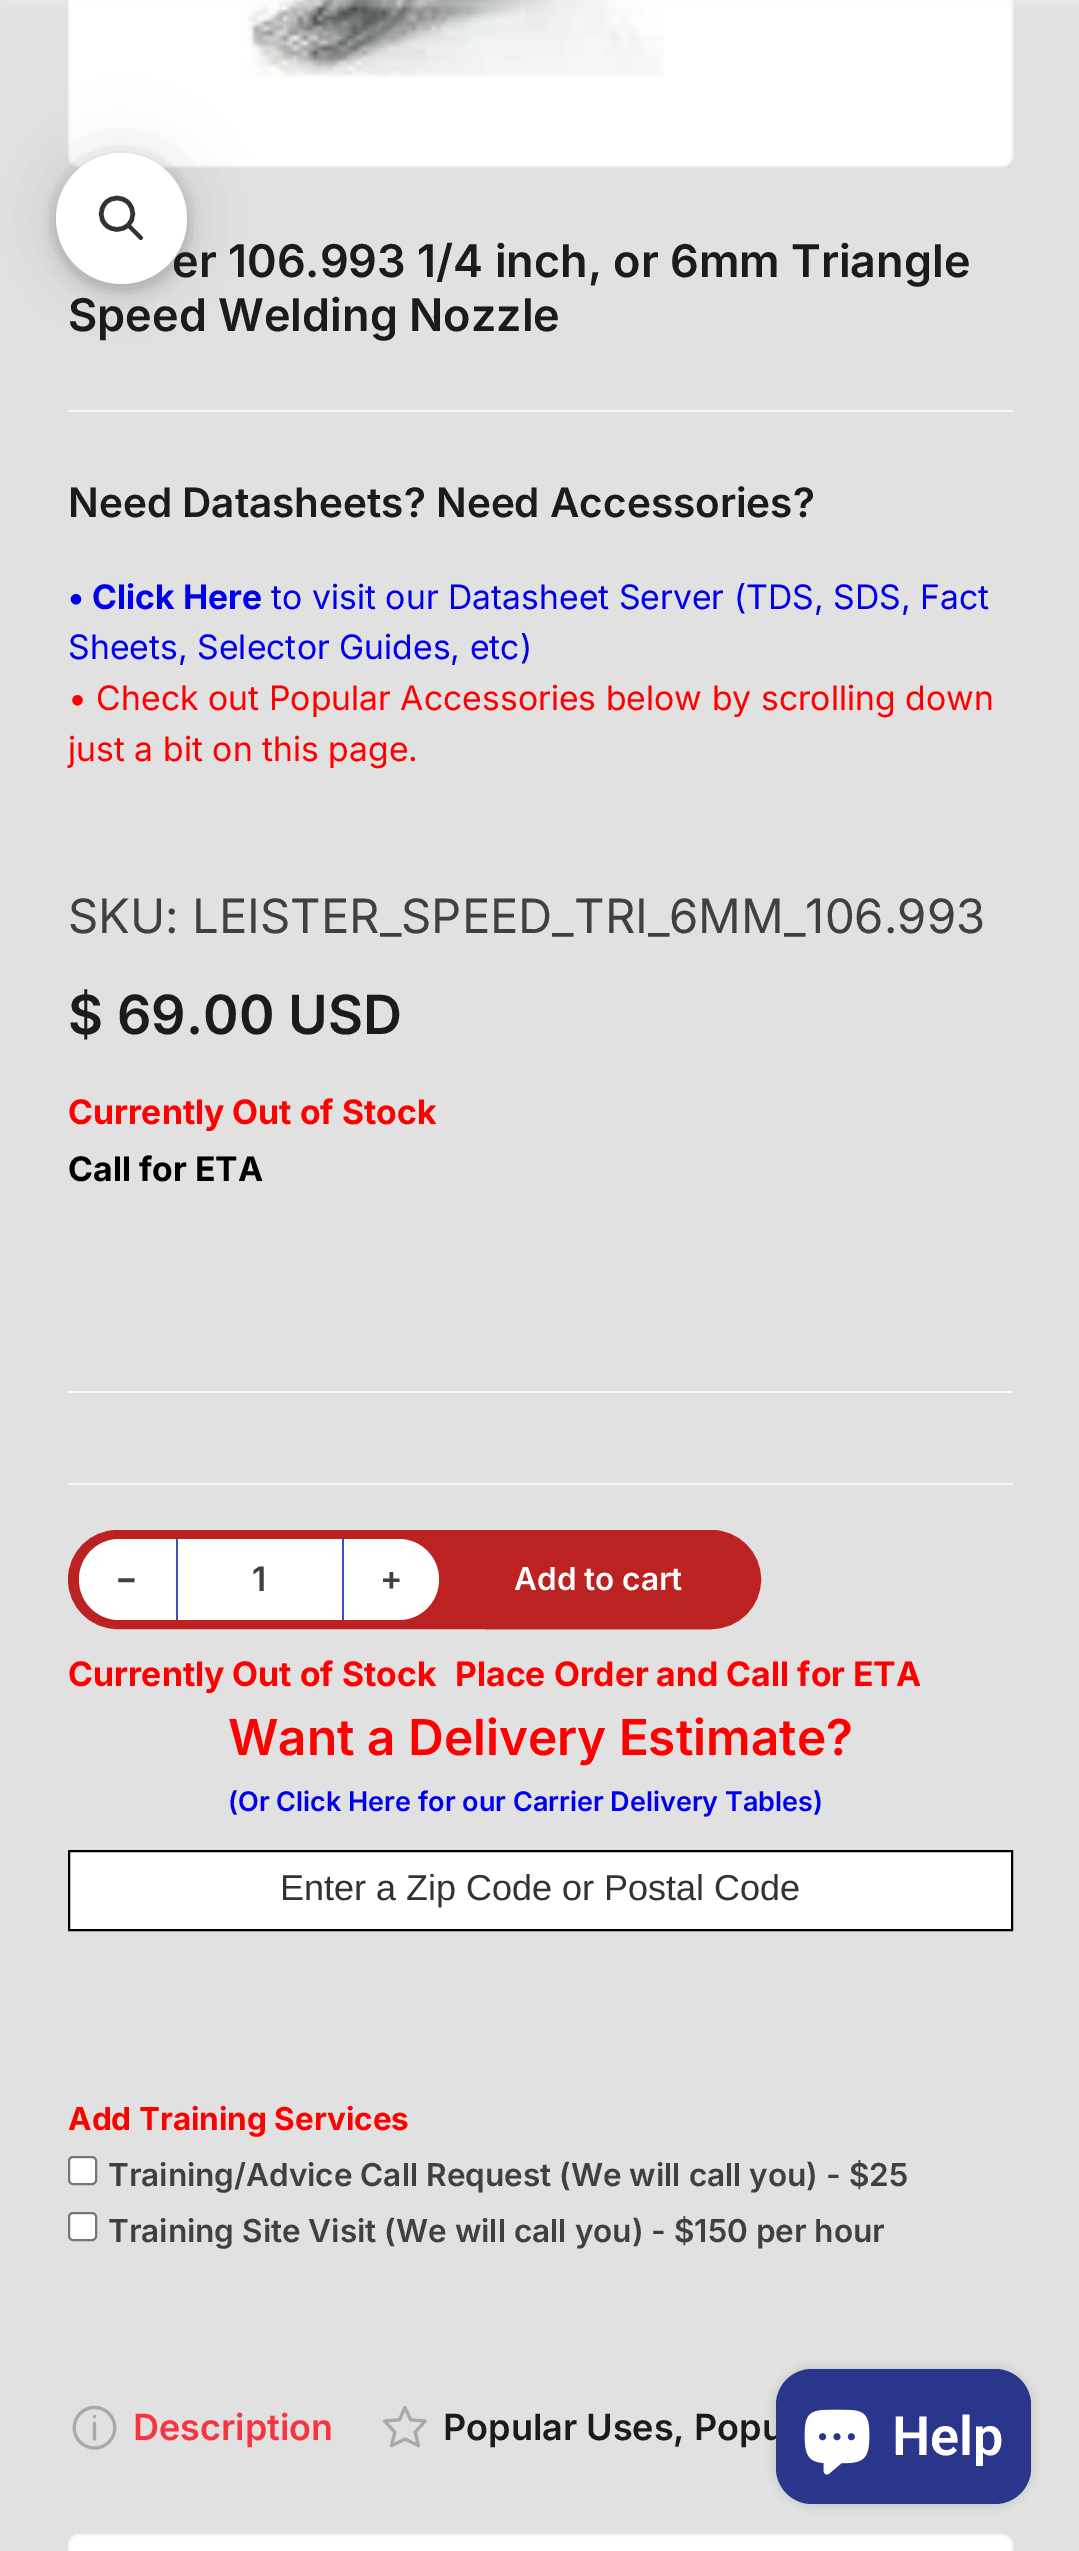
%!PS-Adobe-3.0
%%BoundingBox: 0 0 1079 2551
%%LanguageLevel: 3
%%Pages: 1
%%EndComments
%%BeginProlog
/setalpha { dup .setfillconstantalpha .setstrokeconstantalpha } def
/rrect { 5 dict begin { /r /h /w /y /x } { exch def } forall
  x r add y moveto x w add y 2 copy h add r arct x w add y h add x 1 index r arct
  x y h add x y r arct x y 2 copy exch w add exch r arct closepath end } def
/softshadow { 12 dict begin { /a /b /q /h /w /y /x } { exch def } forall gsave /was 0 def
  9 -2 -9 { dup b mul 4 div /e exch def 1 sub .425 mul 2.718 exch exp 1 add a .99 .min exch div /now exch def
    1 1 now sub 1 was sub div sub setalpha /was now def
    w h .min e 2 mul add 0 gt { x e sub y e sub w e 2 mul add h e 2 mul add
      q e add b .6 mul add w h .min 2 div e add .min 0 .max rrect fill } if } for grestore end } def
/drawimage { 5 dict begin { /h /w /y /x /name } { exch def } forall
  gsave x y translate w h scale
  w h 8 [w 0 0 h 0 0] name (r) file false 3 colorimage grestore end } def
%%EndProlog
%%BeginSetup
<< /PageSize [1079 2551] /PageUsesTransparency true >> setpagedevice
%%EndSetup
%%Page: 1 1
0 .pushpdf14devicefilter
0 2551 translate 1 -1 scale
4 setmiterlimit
0.882 setgray
0 0 1079 2551 rectfill
1 setgray
69 -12 943 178 10 rrect gsave fill grestore
0.965 setgray
2 setlinewidth
stroke
(images/1.raw) 247 0 417 77 drawimage
0 -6 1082 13 0 2 0.3 softshadow
0 setgray
56 162 131 131 65.5 9 0.05 softshadow
56 158 131 130 65 9 0.15 softshadow
56 153 131 131 65.5 34 0.1 softshadow
0.965 setgray
68 410 945 2 rectfill
68 1391 945 2 rectfill
68 1483 945 2 rectfill
0.737 0.133 0.133 setrgbcolor
69 1531 691 97 48.5 rrect gsave fill grestore
stroke
1 setgray
newpath 119.5 1539 moveto 176 1539 lineto 176 1620 lineto 119.5 1620 lineto 97 1620 79 1602 79 1579.5 curveto 79 1557 97 1539 119.5 1539 curveto closepath fill
178 1539 164 81 rectfill
0.247 0.31 0.722 setrgbcolor
342 1539 2 81 rectfill
176 1539 2 81 rectfill
1 setgray
newpath 344 1539 moveto 398.5 1539 lineto 421 1539 439 1557 439 1579.5 curveto 439 1602 421 1620 398.5 1620 curveto 344 1620 lineto closepath fill
0.737 0.133 0.133 setrgbcolor
440 1531 317 97 48.5 rrect gsave fill grestore
stroke
1 setgray
newpath 69 1851 moveto 1012 1851 lineto 1012 1930 lineto 69 1930 lineto closepath gsave fill grestore
0 setgray
stroke
1 setgray
69 2157 27 27 4 rrect gsave fill grestore
0.463 setgray
stroke
1 setgray
69 2213 27 27 4 rrect gsave fill grestore
0.463 setgray
stroke
(images/2.raw) 72 2405 45 45 drawimage
(images/3.raw) 383 2406 44 42 drawimage
1 setgray
69 2535 943 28 10 rrect gsave fill grestore
0.965 setgray
stroke
0 setgray
776 2369 255 135 36 5.5 0.15 softshadow
/Inter-SemiBold [45 0 0 -45 0 0] selectfont
0.106 setgray
172 277 moveto (er 106.993 1/4 inch, or 6mm Triangle) show
1 setgray
newpath 121.5 218.5 65.5 0 360 arc closepath fill
0.2 setgray
4.5 setlinewidth
newpath 106 202.5 moveto 112 196.5 122 196.5 128 202.5 curveto 134.5 209 134.5 219 128 225 curveto 122 231 112 231 106 225 curveto 99.5 219 99.5 209 106 202.5 curveto closepath stroke
newpath 126.5 226.5 moveto 129.5 223.5 lineto 142.5 236.5 lineto 144 238.5 141 241 139.5 239.5 curveto closepath fill
0.106 setgray
68 331 moveto (Speed Welding Nozzle) show
/Inter-SemiBold [40.5 0 0 -40.5 0 0] selectfont
68 517 moveto (Need Datasheets? Need Accessories?) show
/Inter-Bold [33.75 0 0 -33.75 0 0] selectfont
0 0 0.933 setrgbcolor
68 609 moveto (• Click Here) show
/Inter-Regular [33.75 0 0 -33.75 0 0] selectfont
271 609 moveto (to visit our Datasheet Server \(TDS, SDS, Fact) show
68 659 moveto (Sheets, Selector Guides, etc\)) show
1 0 0 setrgbcolor
68 710 moveto (• Check out Popular Accessories below by scrolling down) show
68 761 moveto (just a bit on this page.) show
/Inter-Regular [47.25 0 0 -47.25 0 0] selectfont
0.251 setgray
68 933 moveto (SKU: LEISTER_SPEED_TRI_6MM_106.993) show
/Inter-SemiBold [54 0 0 -54 0 0] selectfont
0.106 setgray
68 1034 moveto ($ 69.00 USD) show
/Inter-Bold [33.75 0 0 -33.75 0 0] selectfont
1 0 0 setrgbcolor
68 1124 moveto (Currently Out of Stock) show
0 setgray
68 1181 moveto (Call for ETA) show
/Inter-SemiBold [33.75 0 0 -33.75 0 0] selectfont
0.251 setgray
115 1590 moveto (−) show
252 1591 moveto (1) show
380 1590 moveto (+) show
/Inter-SemiBold [31.5 0 0 -31.5 0 0] selectfont
1 setgray
514 1590 moveto (Add to cart) show
/Inter-Bold [33.75 0 0 -33.75 0 0] selectfont
1 0 0 setrgbcolor
68 1686 moveto (Currently Out of Stock) show
455 1686 moveto (Place Order and Call for ETA) show
/Inter-SemiBold [49.5 0 0 -49.5 0 0] selectfont
228 1755 moveto (Want a Delivery Estimate?) show
/Inter-SemiBold [27 0 0 -27 0 0] selectfont
0 0 0.933 setrgbcolor
228 1811 moveto (\(Or Click Here for our Carrier Delivery Tables\)) show
/LiberationSans-Regular [36 0 0 -36 0 0] selectfont
0.2 setgray
280 1900 moveto (Enter a Zip Code or Postal Code) show
/Inter-Bold [31.5 0 0 -31.5 0 0] selectfont
1 0 0 setrgbcolor
68 2130 moveto (Add Training Services) show
/Inter-SemiBold [31.5 0 0 -31.5 0 0] selectfont
0.251 setgray
108 2186 moveto (Training/Advice Call Request \(We will call you\) - $25) show
108 2242 moveto (Training Site Visit \(We will call you\) - $150 per hour) show
/Inter-SemiBold [36 0 0 -36 0 0] selectfont
0.969 0.208 0.255 setrgbcolor
133 2440 moveto (Description) show
0.106 setgray
443 2440 moveto (Popular Uses, Popu) show
0.161 0.212 0.545 setrgbcolor
776 2369 255 135 36 rrect fill
(images/4.raw) 804 2409 66 66 drawimage
/Roboto-SemiBold [54 0 0 -54 0 0] selectfont
1 setgray
892 2455 moveto (Help) show
.poppdf14devicefilter showpage
%%EOF
